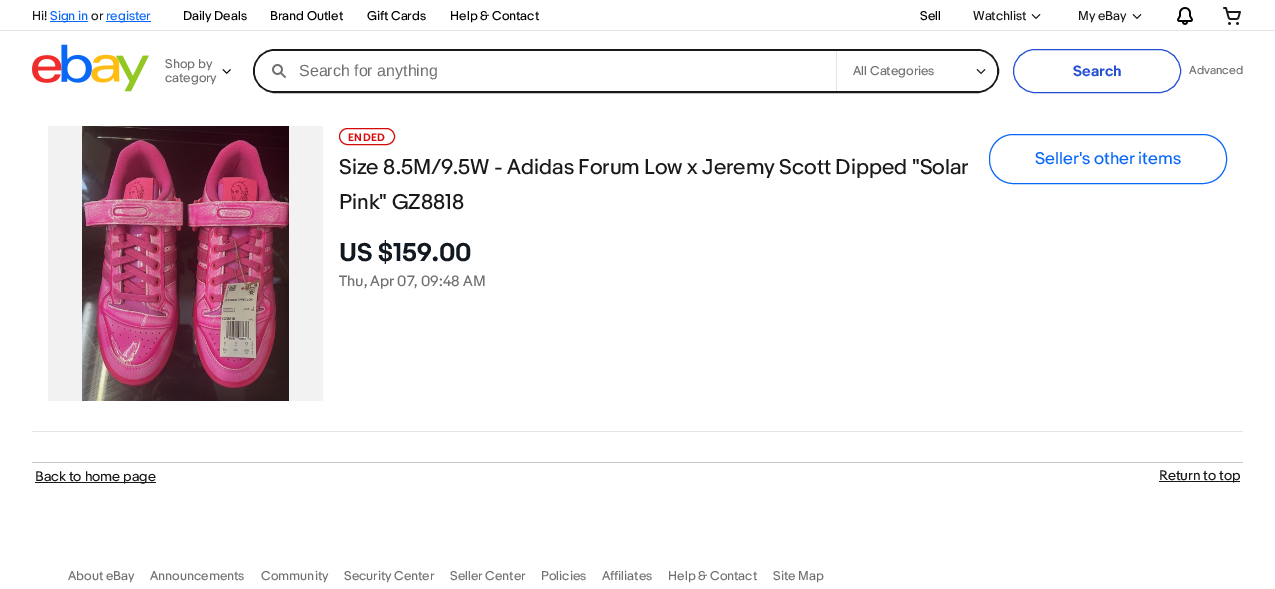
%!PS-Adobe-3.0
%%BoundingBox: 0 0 1275 589
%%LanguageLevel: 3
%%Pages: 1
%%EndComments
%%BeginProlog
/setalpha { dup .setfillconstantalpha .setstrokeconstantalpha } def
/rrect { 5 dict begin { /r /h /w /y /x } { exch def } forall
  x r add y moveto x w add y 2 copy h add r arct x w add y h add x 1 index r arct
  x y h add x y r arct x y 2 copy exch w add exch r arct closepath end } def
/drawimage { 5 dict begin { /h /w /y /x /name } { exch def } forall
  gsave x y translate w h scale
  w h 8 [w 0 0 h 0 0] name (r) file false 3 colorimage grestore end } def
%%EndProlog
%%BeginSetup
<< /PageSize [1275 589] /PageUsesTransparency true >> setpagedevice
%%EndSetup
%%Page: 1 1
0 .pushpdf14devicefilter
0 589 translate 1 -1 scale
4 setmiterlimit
1 setgray
0 0 1275 589 rectfill
0.035 0.408 0.965 setrgbcolor
50 21 38 1 rectfill
106 21 45 1 rectfill
(images/1.raw) 1031 14 10 5 drawimage
(images/1.raw) 1132 14 10 5 drawimage
(images/2.raw) 1177 7 16 18 drawimage
(images/3.raw) 1223 7 18 18 drawimage
(images/4.raw) 32 44 117 48 drawimage
(images/5.raw) 222 69 9 5 drawimage
0.098 setgray
2 setlinewidth
254 50 744 42 21 rrect stroke
0.898 setgray
836 51 1 40 rectfill
1 setgray
newpath 275 51 moveto 836 51 lineto 836 91 lineto 275 91 lineto 264 91 255 82 255 71 curveto 255 60 264 51 275 51 curveto closepath fill
(images/6.raw) 272 64 14 14 drawimage
newpath 837 51 moveto 977 51 lineto 988 51 997 60 997 71 curveto 997 82 988 91 977 91 curveto 837 91 lineto closepath fill
(images/1.raw) 976 69 10 5 drawimage
0.145 0.31 0.824 setrgbcolor
1 setlinewidth
1013.5 49.5 167 43 21.5 rrect stroke
0.898 setgray
32 431 1211 1 rectfill
(images/7.raw) 82 126 207 275 drawimage
0.05 setalpha
0 setgray
48 126 275 275 rectfill
1 setalpha
0.835 0.043 0.043 setrgbcolor
339.5 128.5 55 16 8 rrect stroke
0.035 0.408 0.965 setrgbcolor
989.5 134.5 237 49 23.5 rrect stroke
0.78 setgray
32 462 1211 1 rectfill
0.098 setgray
35 482 121 1 rectfill
1159 481 81 1 rectfill
0.898 setgray
0 30 1275 1 rectfill
/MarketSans-Regular [12 0 0 -12 0 0] selectfont
0.098 setgray
32 20 moveto (Hi!) show
0.035 0.408 0.965 setrgbcolor
50 20 moveto (Sign in) show
0.098 setgray
91 20 moveto (or) show
0.035 0.408 0.965 setrgbcolor
106 20 moveto (register) show
0 setgray
183 20 moveto (Daily Deals) show
270 20 moveto (Brand Outlet) show
367 20 moveto (Gift Cards) show
450 20 moveto (Help & Contact) show
920 20 moveto (Sell) show
0.098 setgray
973 20 moveto (Watchlist) show
1078 20 moveto (My eBay) show
0.439 setgray
165 68 moveto (Shop by) show
165 82 moveto (category) show
/LiberationSans-Regular [16 0 0 -16 0 0] selectfont
299 76 moveto (Search for anything) show
/MarketSans-Regular [12 0 0 -12 0 0] selectfont
853 75 moveto (All Categories) show
/MarketSans-Bold [14 0 0 -14 0 0] selectfont
0.145 0.31 0.824 setrgbcolor
1073 76 moveto (Search) show
/MarketSans-Regular [11 0 0 -11 0 0] selectfont
0.439 setgray
1189 74 moveto (Advanced) show
/MarketSans-Bold [10 0 0 -10 0 0] selectfont
0.835 0.043 0.043 setrgbcolor
348 141 moveto 0.5 0 (ENDED) ashow
/MarketSans-Regular [20 0 0 -20 0 0] selectfont
0.098 setgray
339 174 moveto (Size 8.5M/9.5W - Adidas Forum Low x Jeremy Scott Dipped "Solar) show
339 209 moveto (Pink" GZ8818) show
/MarketSans-Bold [24 0 0 -24 0 0] selectfont
0.067 0.094 0.125 setrgbcolor
339 261 moveto (US $159.00) show
/MarketSans-Regular [14 0 0 -14 0 0] selectfont
0.439 setgray
339 286 moveto (Thu, Apr 07, 09:48 AM) show
/MarketSans-Regular [16 0 0 -16 0 0] selectfont
0.035 0.408 0.965 setrgbcolor
1035 164 moveto (Seller's other items) show
/MarketSans-Regular [13 0 0 -13 0 0] selectfont
0.098 setgray
35 481 moveto (Back to home page) show
1159 480 moveto (Return to top) show
/MarketSans-Regular [12 0 0 -12 0 0] selectfont
0.439 setgray
68 580 moveto (About eBay) show
150 580 moveto (Announcements) show
261 580 moveto (Community) show
344 580 moveto (Security Center) show
450 580 moveto (Seller Center) show
541 580 moveto (Policies) show
602 580 moveto (Affiliates) show
668 580 moveto (Help & Contact) show
773 580 moveto (Site Map) show
.poppdf14devicefilter showpage
%%EOF
